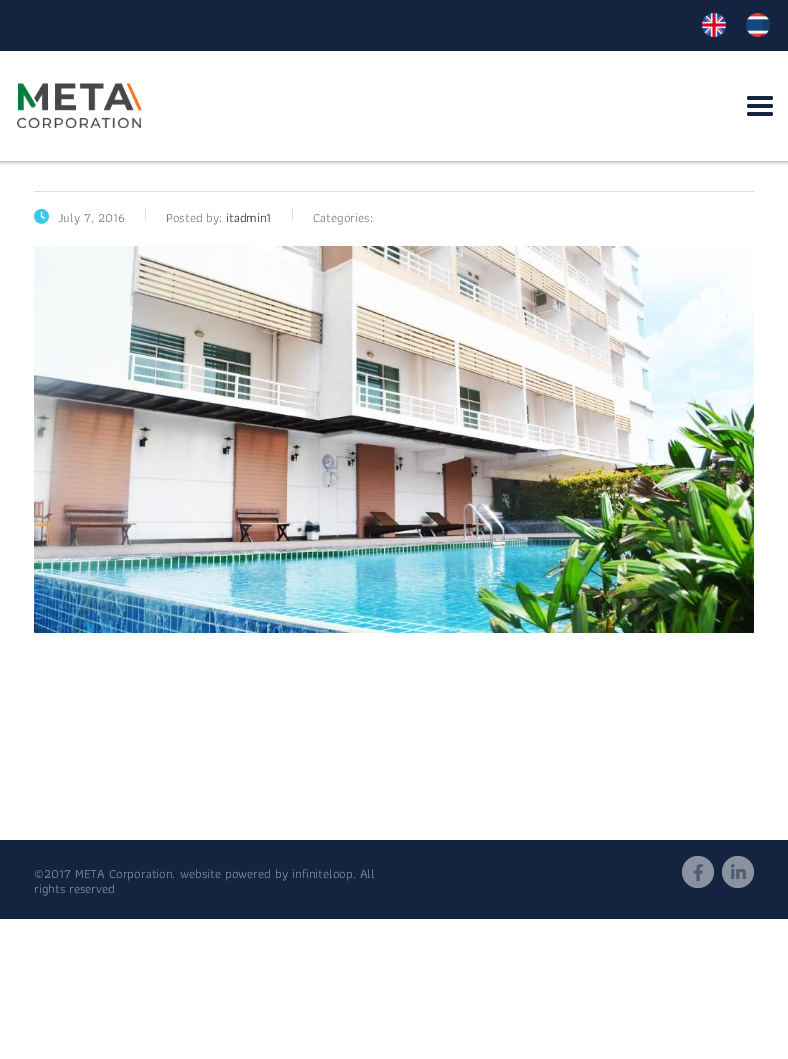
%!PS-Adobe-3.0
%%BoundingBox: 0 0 788 1059
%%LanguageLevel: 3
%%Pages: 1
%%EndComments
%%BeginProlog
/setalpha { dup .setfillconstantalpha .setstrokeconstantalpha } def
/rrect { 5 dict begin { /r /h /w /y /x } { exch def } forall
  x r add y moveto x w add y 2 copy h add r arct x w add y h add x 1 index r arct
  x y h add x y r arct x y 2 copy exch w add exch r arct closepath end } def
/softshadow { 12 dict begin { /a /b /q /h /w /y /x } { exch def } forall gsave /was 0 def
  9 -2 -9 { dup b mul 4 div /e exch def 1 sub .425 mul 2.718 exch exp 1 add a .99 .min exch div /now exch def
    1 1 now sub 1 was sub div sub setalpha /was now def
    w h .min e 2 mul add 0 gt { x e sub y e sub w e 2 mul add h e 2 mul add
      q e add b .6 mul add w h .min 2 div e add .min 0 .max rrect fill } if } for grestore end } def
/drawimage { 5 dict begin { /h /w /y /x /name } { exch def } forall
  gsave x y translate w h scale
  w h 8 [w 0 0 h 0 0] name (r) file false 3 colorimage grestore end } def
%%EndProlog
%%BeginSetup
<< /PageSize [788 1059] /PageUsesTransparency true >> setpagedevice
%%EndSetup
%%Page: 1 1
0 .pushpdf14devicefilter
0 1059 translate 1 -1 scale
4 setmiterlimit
1 setgray
0 0 788 1059 rectfill
0 setgray
0 0 788 161 0 2.5 0.52 softshadow
0.078 0.141 0.251 setrgbcolor
0 0 788 51 rectfill
(images/1.raw) 702 13 24 24 drawimage
(images/2.raw) 746 13 24 24 drawimage
1 setgray
0 51 788 110 rectfill
(images/3.raw) 17 83 125 45 drawimage
0.078 0.141 0.251 setrgbcolor
747 104 26 4 2 rrect fill
747 96 26 4 2 rrect fill
747 112 26 4 2 rrect fill
0.867 setgray
34 191 720 1 rectfill
(images/4.raw) 34 208 15 16 drawimage
145 208 1 12 rectfill
292 208 1 12 rectfill
(images/5.raw) 34 246 720 387 drawimage
0.078 0.141 0.251 setrgbcolor
0 840 788 79 rectfill
0.541 0.573 0.627 setrgbcolor
newpath 698 872 16 0 360 arc closepath fill
(images/6.raw) 693 864 10 18 drawimage
newpath 738 872 16 0 360 arc closepath fill
(images/7.raw) 731 864 15 15 drawimage
/Athiti-Regular [13 0 0 -13 0 0] selectfont
0.467 setgray
58 222 moveto (July 7, 2016) show
166 222 moveto (Posted by:) show
0.133 setgray
226 222 moveto (itadmin1) show
0.467 setgray
313 222 moveto (Categories:) show
0.541 0.573 0.627 setrgbcolor
34 878 moveto (©2017 META Corporation. website powered by infiniteloop. All) show
34 893 moveto (rights reserved) show
.poppdf14devicefilter showpage
%%EOF
